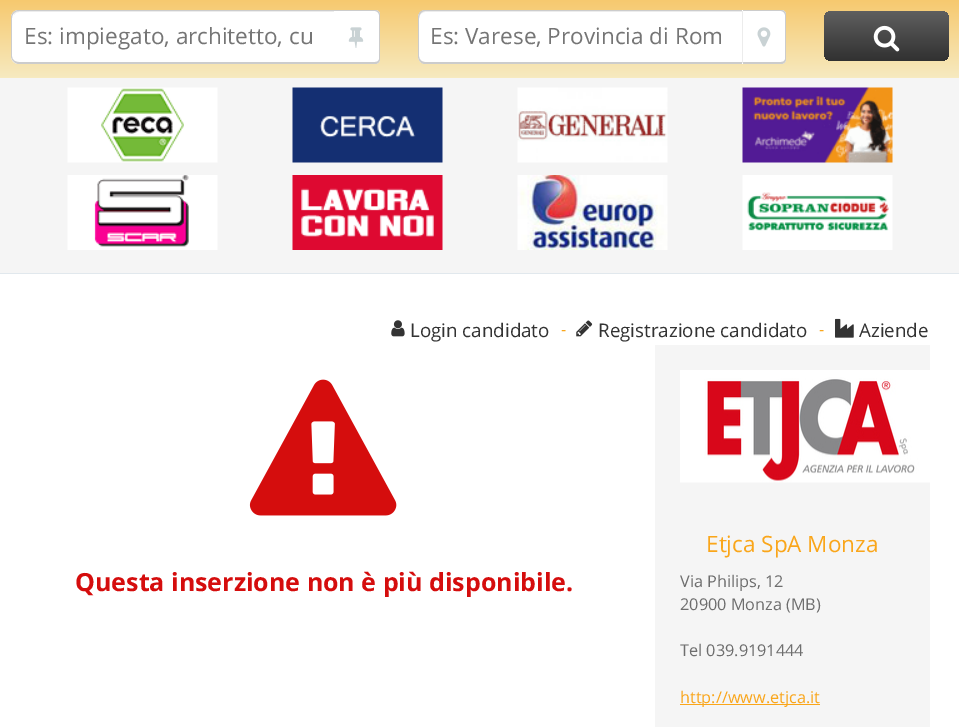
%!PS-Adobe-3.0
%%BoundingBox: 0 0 959 727
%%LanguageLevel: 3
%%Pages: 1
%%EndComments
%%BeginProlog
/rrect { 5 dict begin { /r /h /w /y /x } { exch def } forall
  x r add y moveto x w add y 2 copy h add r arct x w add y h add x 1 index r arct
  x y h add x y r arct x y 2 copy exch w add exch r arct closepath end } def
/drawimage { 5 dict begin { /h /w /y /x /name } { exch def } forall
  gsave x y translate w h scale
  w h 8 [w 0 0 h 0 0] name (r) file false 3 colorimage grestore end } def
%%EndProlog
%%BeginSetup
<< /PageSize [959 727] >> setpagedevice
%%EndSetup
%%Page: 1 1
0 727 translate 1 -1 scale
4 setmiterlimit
1 setgray
0 0 959 727 rectfill
gsave newpath 0 0 moveto 959 0 lineto 959 78 lineto 0 78 lineto closepath clip newpath
<< /ShadingType 2 /ColorSpace /DeviceRGB /Coords [480 -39 480 78] /Extend [true true] /Function << /FunctionType 2 /Domain [0 1] /C0 [0.961 0.722 0.278] /C1 [0.969 0.918 0.753] /N 1 >> >> shfill grestore
newpath 19 10 moveto 334 10 lineto 334 64 lineto 19 64 lineto 14.5 64 11 60.5 11 56 curveto 11 18 lineto 11 13.5 14.5 10 19 10 curveto closepath fill
0.925 setgray
newpath 19 12 moveto 334 12 lineto 334 11 lineto 19 11 lineto 17 11 14 12 14 15 curveto 15 13 17 12 19 12 curveto closepath fill
0.8 setgray
newpath 19 10 moveto 334 10 lineto 334 64 lineto 19 64 lineto 15 64 11 60 11 56 curveto 11 18 lineto 11 13 15 10 19 10 curveto closepath 19 11 moveto 334 11 lineto 334 62 lineto 19 62 lineto 15 62 12 60 12 56 curveto 12 18 lineto 12 14 15 11 19 11 curveto closepath eofill
1 setgray
newpath 334 10 moveto 375 10 lineto 378 10 380 12 380 15 curveto 380 59 lineto 380 62 378 64 375 64 curveto 334 64 lineto closepath fill
0.8 setgray
newpath 334 10 moveto 375 10 lineto 378 10 380 12 380 15 curveto 380 59 lineto 380 62 378 64 375 64 curveto 334 64 lineto closepath 334 11 moveto 375 11 lineto 377 11 379 13 379 15 curveto 379 59 lineto 379 61 377 62 375 62 curveto 334 62 lineto closepath eofill
(images/1.raw) 348 27 16 21 drawimage
1 setgray
newpath 743 10 moveto 781 10 lineto 784 10 786 12 786 15 curveto 786 59 lineto 786 62 784 64 781 64 curveto 743 64 lineto closepath fill
0.8 setgray
newpath 742 10 moveto 781 10 lineto 784 10 786 12 786 15 curveto 786 59 lineto 786 62 784 64 781 64 curveto 742 64 lineto closepath 742 11 moveto 781 11 lineto 783 11 785 13 785 15 curveto 785 59 lineto 785 61 783 62 781 62 curveto 742 62 lineto closepath eofill
1 setgray
newpath 426 10 moveto 743 10 lineto 743 64 lineto 426 64 lineto 421.5 64 418 60.5 418 56 curveto 418 18 lineto 418 13.5 421.5 10 426 10 curveto closepath fill
0.925 setgray
newpath 425 12 moveto 742 12 lineto 742 63 lineto 743 63 lineto 743 11 lineto 425 11 lineto 420 11 419 15 419 19 curveto 419 15 422 12 425 12 curveto closepath fill
0.8 setgray
newpath 425 10 moveto 742 10 lineto 742 64 lineto 425 64 lineto 421 64 418 60 418 56 curveto 418 18 lineto 418 13 421 10 425 10 curveto closepath 425 11 moveto 742 11 lineto 742 62 lineto 425 62 lineto 422 62 419 60 419 56 curveto 419 18 lineto 419 14 422 11 425 11 curveto closepath eofill
(images/2.raw) 757 27 14 20 drawimage
gsave 824 11 125 50 8 rrect clip newpath
<< /ShadingType 2 /ColorSpace /DeviceRGB /Coords [886 11 886 61] /Extend [true true] /Function << /FunctionType 2 /Domain [0 1] /C0 [0.373 0.373 0.373] /C1 [0.192 0.192 0.192] /N 1 >> >> shfill grestore
(images/3.raw) 873 25 27 27 drawimage
0.961 setgray
0 78 959 195 rectfill
0.882 0.91 0.929 setrgbcolor
0 273 959 1 rectfill
(images/4.raw) 67 87 151 76 drawimage
(images/5.raw) 292 87 151 76 drawimage
(images/6.raw) 517 87 151 76 drawimage
(images/7.raw) 742 87 151 76 drawimage
(images/8.raw) 67 175 151 75 drawimage
(images/9.raw) 292 175 151 75 drawimage
(images/10.raw) 517 175 151 75 drawimage
(images/11.raw) 742 175 151 75 drawimage
(images/12.raw) 391 320 14 17 drawimage
(images/13.raw) 576 320 17 17 drawimage
(images/14.raw) 835 318 19 20 drawimage
(images/15.raw) 249 379 148 137 drawimage
0.961 setgray
655 345 275 382 rectfill
(images/16.raw) 680 370 250 113 drawimage
0.98 0.651 0.102 setrgbcolor
680 704 140 1 rectfill
/OpenSans-Regular [22.5 0 0 -22.5 0 0] selectfont
0.459 setgray
24 44 moveto (Es: impiegato, architetto, cu) show
430 44 moveto (Es: Varese, Provincia di Rom) show
/OpenSans-Regular [18.75 0 0 -18.75 0 0] selectfont
0.2 setgray
410 337 moveto (Login candidato) show
/OpenSans-Regular [16.25 0 0 -16.25 0 0] selectfont
0.98 0.651 0.102 setrgbcolor
561 335 moveto (-) show
/OpenSans-Regular [18.75 0 0 -18.75 0 0] selectfont
0.2 setgray
598 337 moveto (Registrazione candidato) show
/OpenSans-Regular [16.25 0 0 -16.25 0 0] selectfont
0.98 0.651 0.102 setrgbcolor
819 335 moveto (-) show
/OpenSans-Regular [18.75 0 0 -18.75 0 0] selectfont
0.2 setgray
859 337 moveto (Aziende) show
/OpenSans-Bold [25 0 0 -25 0 0] selectfont
0.835 0.051 0.051 setrgbcolor
75 591 moveto (Questa inserzione non è più disponibile.) show
/OpenSans-Regular [22.5 0 0 -22.5 0 0] selectfont
0.98 0.651 0.102 setrgbcolor
706 552 moveto (Etjca SpA Monza) show
/OpenSans-Regular [16.25 0 0 -16.25 0 0] selectfont
0.431 setgray
680 587 moveto (Via Philips, 12) show
680 610 moveto (20900 Monza \(MB\)) show
680 656 moveto (Tel 039.9191444) show
0.98 0.651 0.102 setrgbcolor
680 703 moveto (http://www.etjca.it) show
showpage
%%EOF
